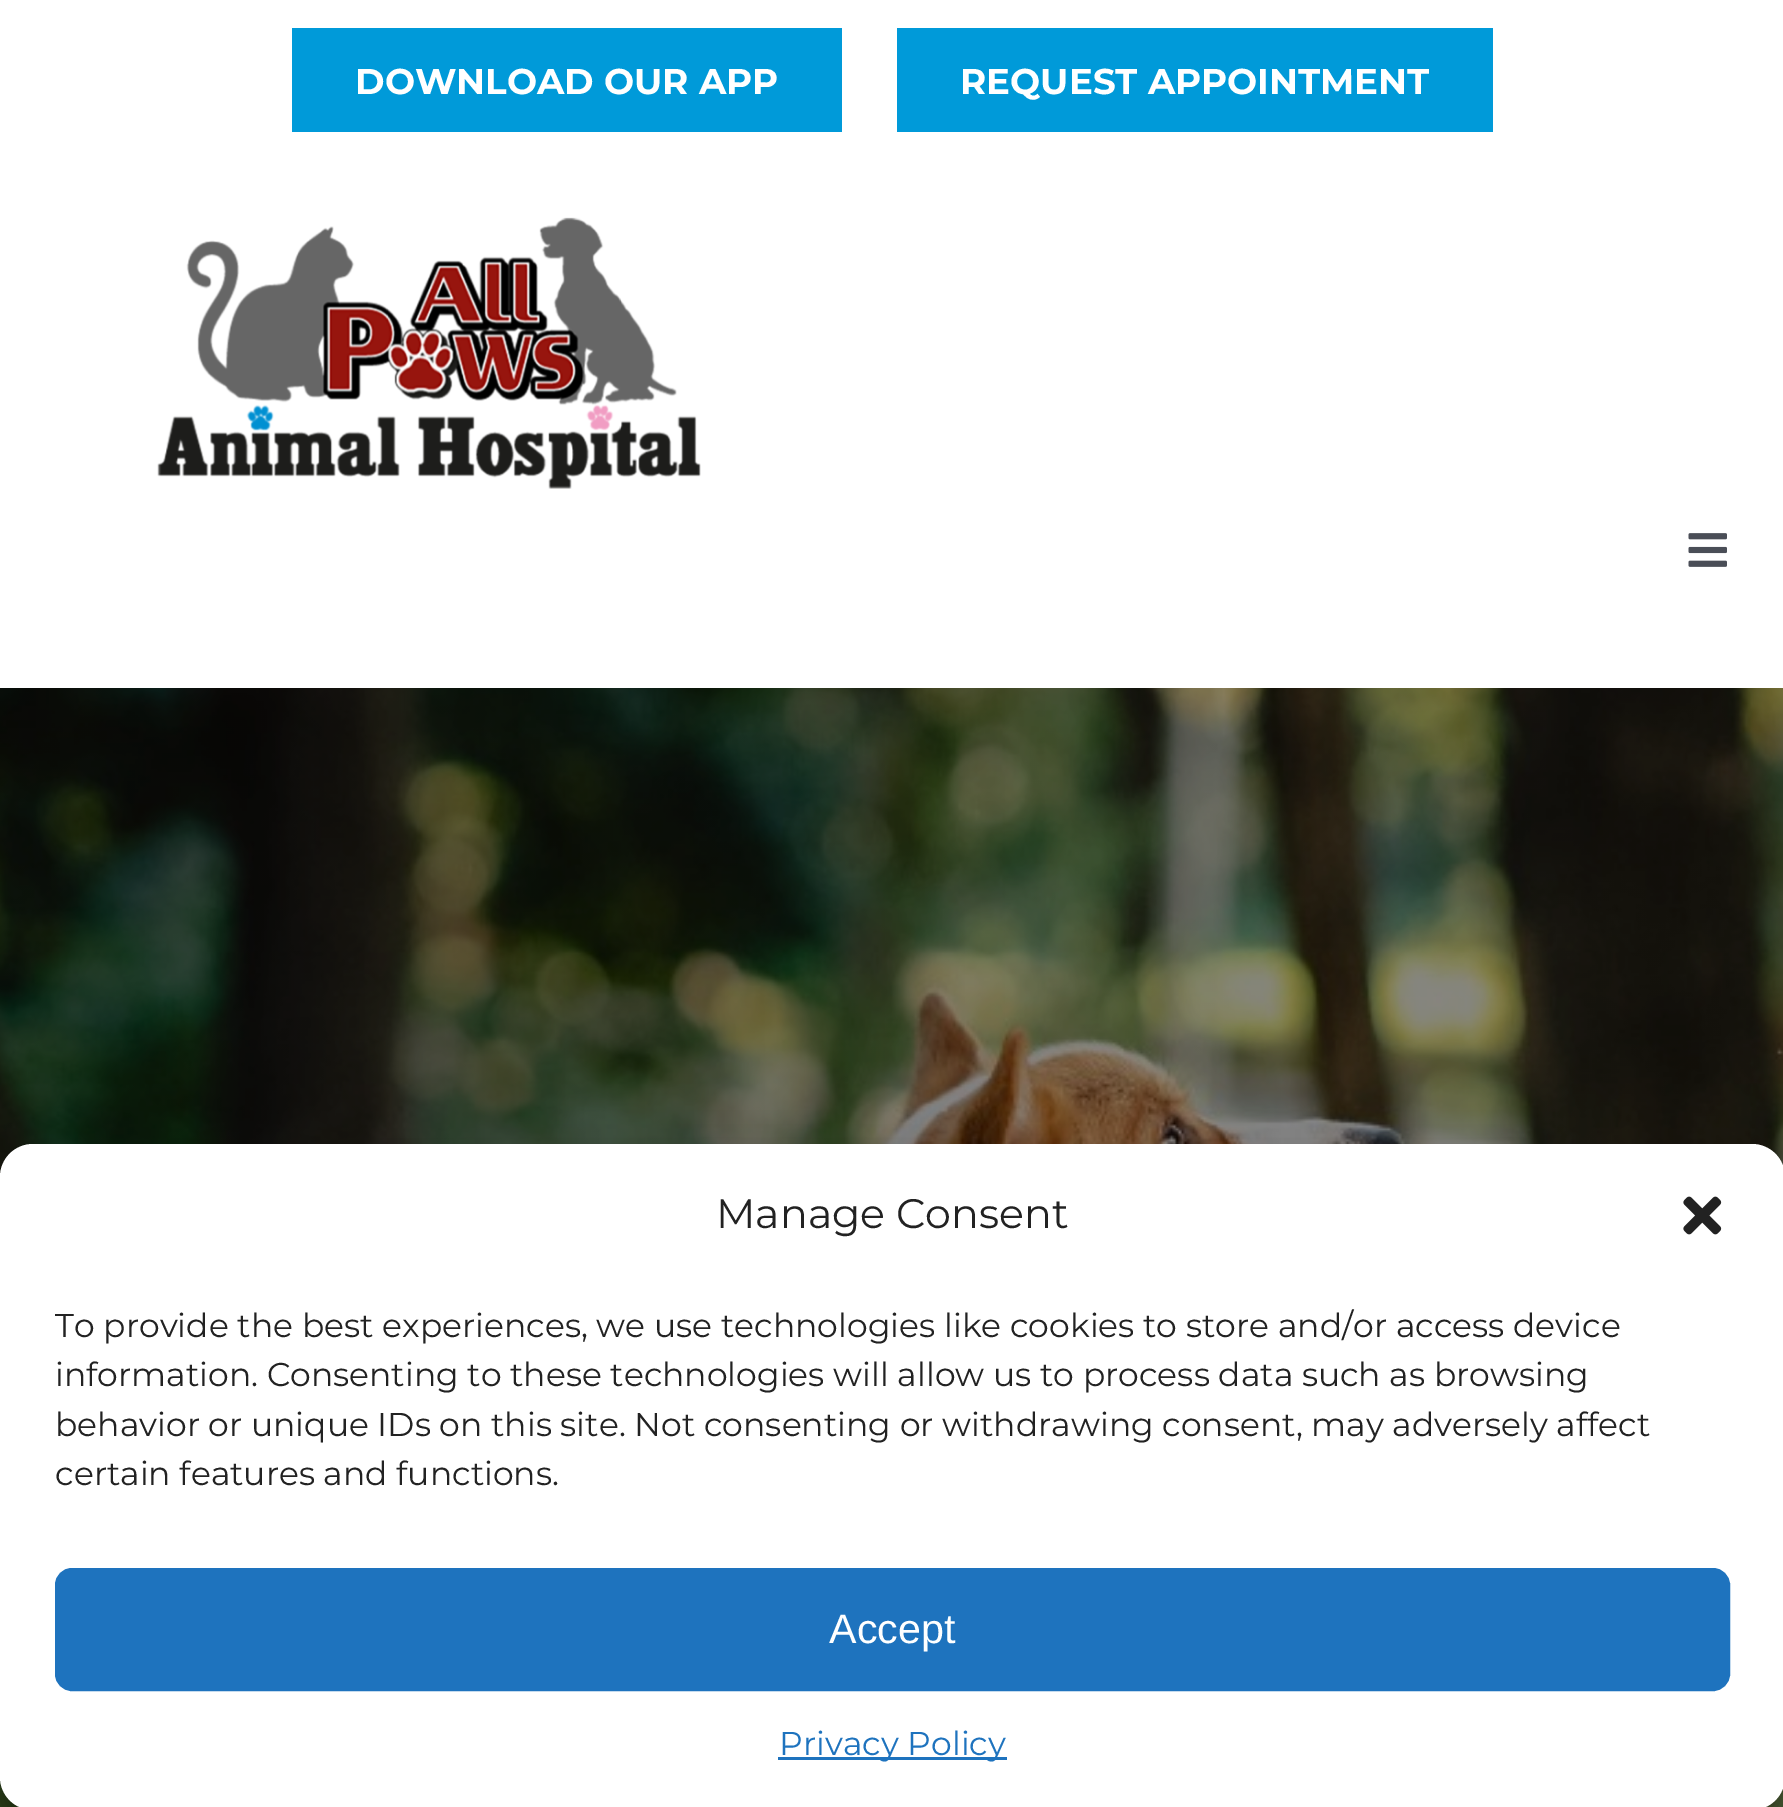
%!PS-Adobe-3.0
%%BoundingBox: 0 0 1783 1807
%%LanguageLevel: 3
%%Pages: 1
%%EndComments
%%BeginProlog
/setalpha { dup .setfillconstantalpha .setstrokeconstantalpha } def
/rrect { 5 dict begin { /r /h /w /y /x } { exch def } forall
  x r add y moveto x w add y 2 copy h add r arct x w add y h add x 1 index r arct
  x y h add x y r arct x y 2 copy exch w add exch r arct closepath end } def
/softshadow { 12 dict begin { /a /b /q /h /w /y /x } { exch def } forall gsave /was 0 def
  9 -2 -9 { dup b mul 4 div /e exch def 1 sub .425 mul 2.718 exch exp 1 add a .99 .min exch div /now exch def
    1 1 now sub 1 was sub div sub setalpha /was now def
    w h .min e 2 mul add 0 gt { x e sub y e sub w e 2 mul add h e 2 mul add
      q e add b .6 mul add w h .min 2 div e add .min 0 .max rrect fill } if } for grestore end } def
/drawimage { 5 dict begin { /h /w /y /x /name } { exch def } forall
  gsave x y translate w h scale
  w h 8 [w 0 0 h 0 0] name (r) file false 3 colorimage grestore end } def
%%EndProlog
%%BeginSetup
<< /PageSize [1783 1807] /PageUsesTransparency true >> setpagedevice
%%EndSetup
%%Page: 1 1
0 .pushpdf14devicefilter
0 1807 translate 1 -1 scale
4 setmiterlimit
1 setgray
0 0 1783 1807 rectfill
0 0.604 0.851 setrgbcolor
292 28 550 104 rectfill
897 28 596 104 rectfill
(images/1.raw) 157 217 544 272 drawimage
(images/2.raw) 1688 533 39 34 drawimage
(images/3.raw) 0 688 1783 1119 drawimage
0 setgray
0 1161 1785 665 33 8 0.23 softshadow
0 1172 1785 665 33 27.5 0.19 softshadow
1 setgray
0 1144 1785 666 33 rrect fill
(images/4.raw) 1683 1196 39 39 drawimage
0.118 0.451 0.745 setrgbcolor
56.5 1569.5 1672 120 15.5 rrect gsave fill grestore
3 setlinewidth
stroke
778 1757 229 3 rectfill
/Montserrat-Bold [35.75 0 0 -35.75 0 0] selectfont
1 setgray
355 94 moveto (DOWNLOAD OUR APP) show
960 94 moveto (REQUEST APPOINTMENT) show
/Montserrat-Regular [41.25 0 0 -41.25 0 0] selectfont
0.133 setgray
716 1228 moveto (Manage Consent) show
/Montserrat-Regular [33 0 0 -33 0 0] selectfont
55 1337 moveto (To provide the best experiences, we use technologies like cookies to store and/or access device) show
55 1386 moveto (information. Consenting to these technologies will allow us to process data such as browsing) show
55 1436 moveto (behavior or unique IDs on this site. Not consenting or withdrawing consent, may adversely affect) show
55 1485 moveto (certain features and functions.) show
/LiberationSans-Regular [41.25 0 0 -41.25 0 0] selectfont
1 setgray
829 1643 moveto (Accept) show
/Montserrat-Regular [33 0 0 -33 0 0] selectfont
0.118 0.451 0.745 setrgbcolor
779 1755 moveto (Privacy Policy) show
.poppdf14devicefilter showpage
%%EOF
